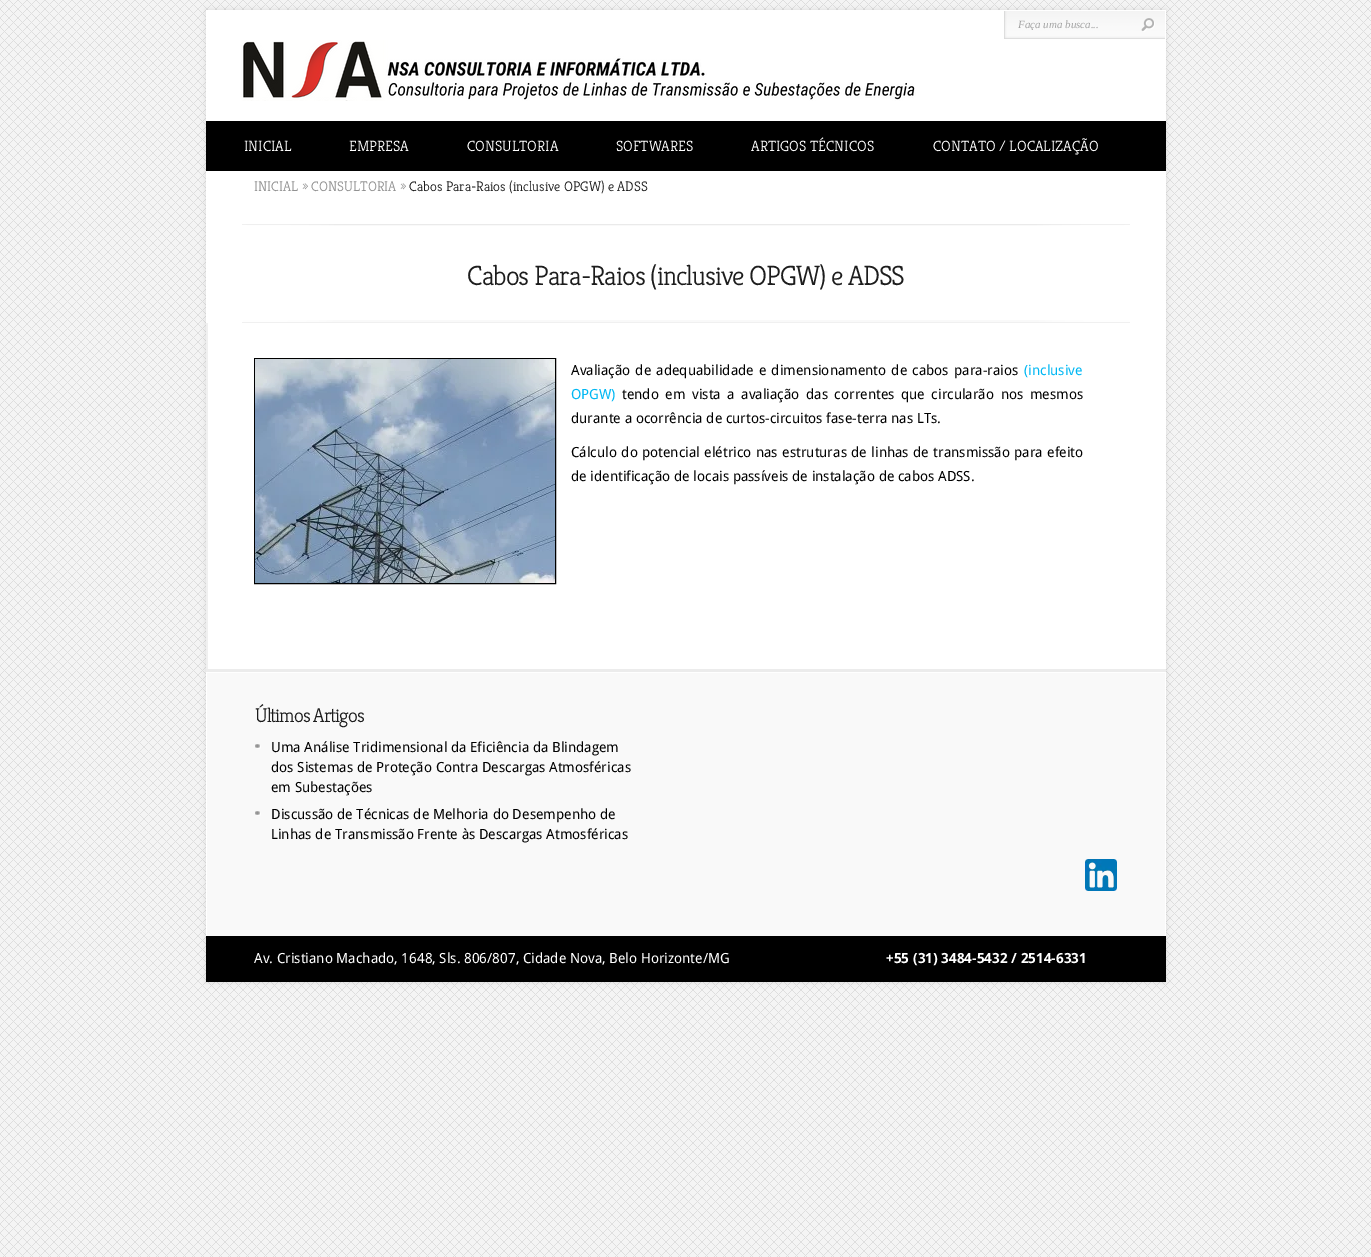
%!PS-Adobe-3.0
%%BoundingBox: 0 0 1371 1257
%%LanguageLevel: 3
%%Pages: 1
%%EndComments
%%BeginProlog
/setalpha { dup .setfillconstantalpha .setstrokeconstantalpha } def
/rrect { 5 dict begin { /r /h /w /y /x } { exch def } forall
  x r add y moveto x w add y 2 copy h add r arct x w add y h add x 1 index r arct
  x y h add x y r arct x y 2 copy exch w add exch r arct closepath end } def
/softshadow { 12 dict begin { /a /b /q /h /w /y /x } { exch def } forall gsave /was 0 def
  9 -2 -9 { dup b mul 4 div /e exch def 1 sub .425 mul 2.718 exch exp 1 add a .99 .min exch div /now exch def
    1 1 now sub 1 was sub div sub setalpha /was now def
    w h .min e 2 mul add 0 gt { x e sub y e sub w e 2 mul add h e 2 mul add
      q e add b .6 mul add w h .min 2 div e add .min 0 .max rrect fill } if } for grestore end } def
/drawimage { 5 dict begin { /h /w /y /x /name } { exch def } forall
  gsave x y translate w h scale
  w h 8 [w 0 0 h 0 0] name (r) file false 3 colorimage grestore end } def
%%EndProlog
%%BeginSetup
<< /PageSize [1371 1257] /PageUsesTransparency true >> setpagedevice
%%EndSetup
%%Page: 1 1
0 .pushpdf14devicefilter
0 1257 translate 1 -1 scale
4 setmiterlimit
0.957 setgray
0 0 1371 1257 rectfill
(images/1.raw) 0 0 1371 1257 drawimage
0 setgray
206 10 960 972 0 3 0.1 softshadow
1 setgray
206 10 960 926 rectfill
(images/2.raw) 1004 11 161 28 drawimage
(images/3.raw) 1141 18 14 14 drawimage
(images/4.raw) 241 40 675 61 drawimage
0 setgray
206 121 960 50 rectfill
(images/5.raw) 242 224 888 2 drawimage
(images/6.raw) 242 320 888 3 drawimage
0.941 setgray
206 323 2 346 rectfill
0 setgray
254.5 358.5 301 225 rectstroke
(images/7.raw) 255 359 300 224 drawimage
0.925 setgray
206 669 960 3 rectfill
0.976 setgray
207 673 958 263 rectfill
(images/8.raw) 255 744 6 5 drawimage
(images/8.raw) 255 811 6 5 drawimage
(images/9.raw) 1085 859 32 32 drawimage
0 setgray
206 936 960 46 rectfill
gsave
1018 18 114 12 rectclip
/LiberationSerif-Italic [11 0 0 -11 0 0] selectfont
0.639 setgray
1018 28 moveto (Faça uma busca...) show
grestore
/Kreon-Light [15 0 0 -15 0 0] selectfont
1 setgray
244 151 moveto (INICIAL) show
349 151 moveto (EMPRESA) show
467 151 moveto (CONSULTORIA) show
616 151 moveto (SOFTWARES) show
751 151 moveto (ARTIGOS TÉCNICOS) show
933 151 moveto (CONTATO / LOCALIZAÇÃO) show
/Kreon-Light [14 0 0 -14 0 0] selectfont
0.573 setgray
254 191 moveto (INICIAL » CONSULTORIA ») show
0.114 setgray
409 191 moveto (Cabos Para-Raios \(inclusive OPGW\) e ADSS) show
/Kreon-Light [28 0 0 -28 0 0] selectfont
467 285 moveto -1 0 (Cabos Para-Raios \(inclusive OPGW\) e ADSS) ashow
/DroidSans-Regular [14 0 0 -14 0 0] selectfont
0 setgray
571 375 moveto 1.5 0 32 (Avaliação de adequabilidade e dimensionamento de cabos para-raios) widthshow
0 0.718 0.953 setrgbcolor
1024 375 moveto (\(inclusive) show
571 399 moveto (OPGW\)) show
0 setgray
622 399 moveto 2.9 0 32 (tendo em vista a avaliação das correntes que circularão nos mesmos) widthshow
571 423 moveto (durante a ocorrência de curtos-circuitos fase-terra nas LTs.) show
571 457 moveto 0.75 0 32 (Cálculo do potencial elétrico nas estruturas de linhas de transmissão para efeito) widthshow
571 481 moveto (de identificação de locais passíveis de instalação de cabos ADSS.) show
/Kreon-Light [20 0 0 -20 0 0] selectfont
0.114 setgray
255 722 moveto -1 0 (Últimos Artigos) ashow
/DroidSans-Regular [14 0 0 -14 0 0] selectfont
0 setgray
271 752 moveto (Uma Análise Tridimensional da Eficiência da Blindagem) show
271 772 moveto (dos Sistemas de Proteção Contra Descargas Atmosféricas) show
271 792 moveto (em Subestações) show
271 819 moveto (Discussão de Técnicas de Melhoria do Desempenho de) show
271 839 moveto (Linhas de Transmissão Frente às Descargas Atmosféricas) show
1 setgray
254 963 moveto (Av. Cristiano Machado, 1648, Sls. 806/807, Cidade Nova, Belo Horizonte/MG) show
/DroidSans-Bold [14 0 0 -14 0 0] selectfont
886 963 moveto (+55 \(31\) 3484-5432 / 2514-6331) show
.poppdf14devicefilter showpage
%%EOF
